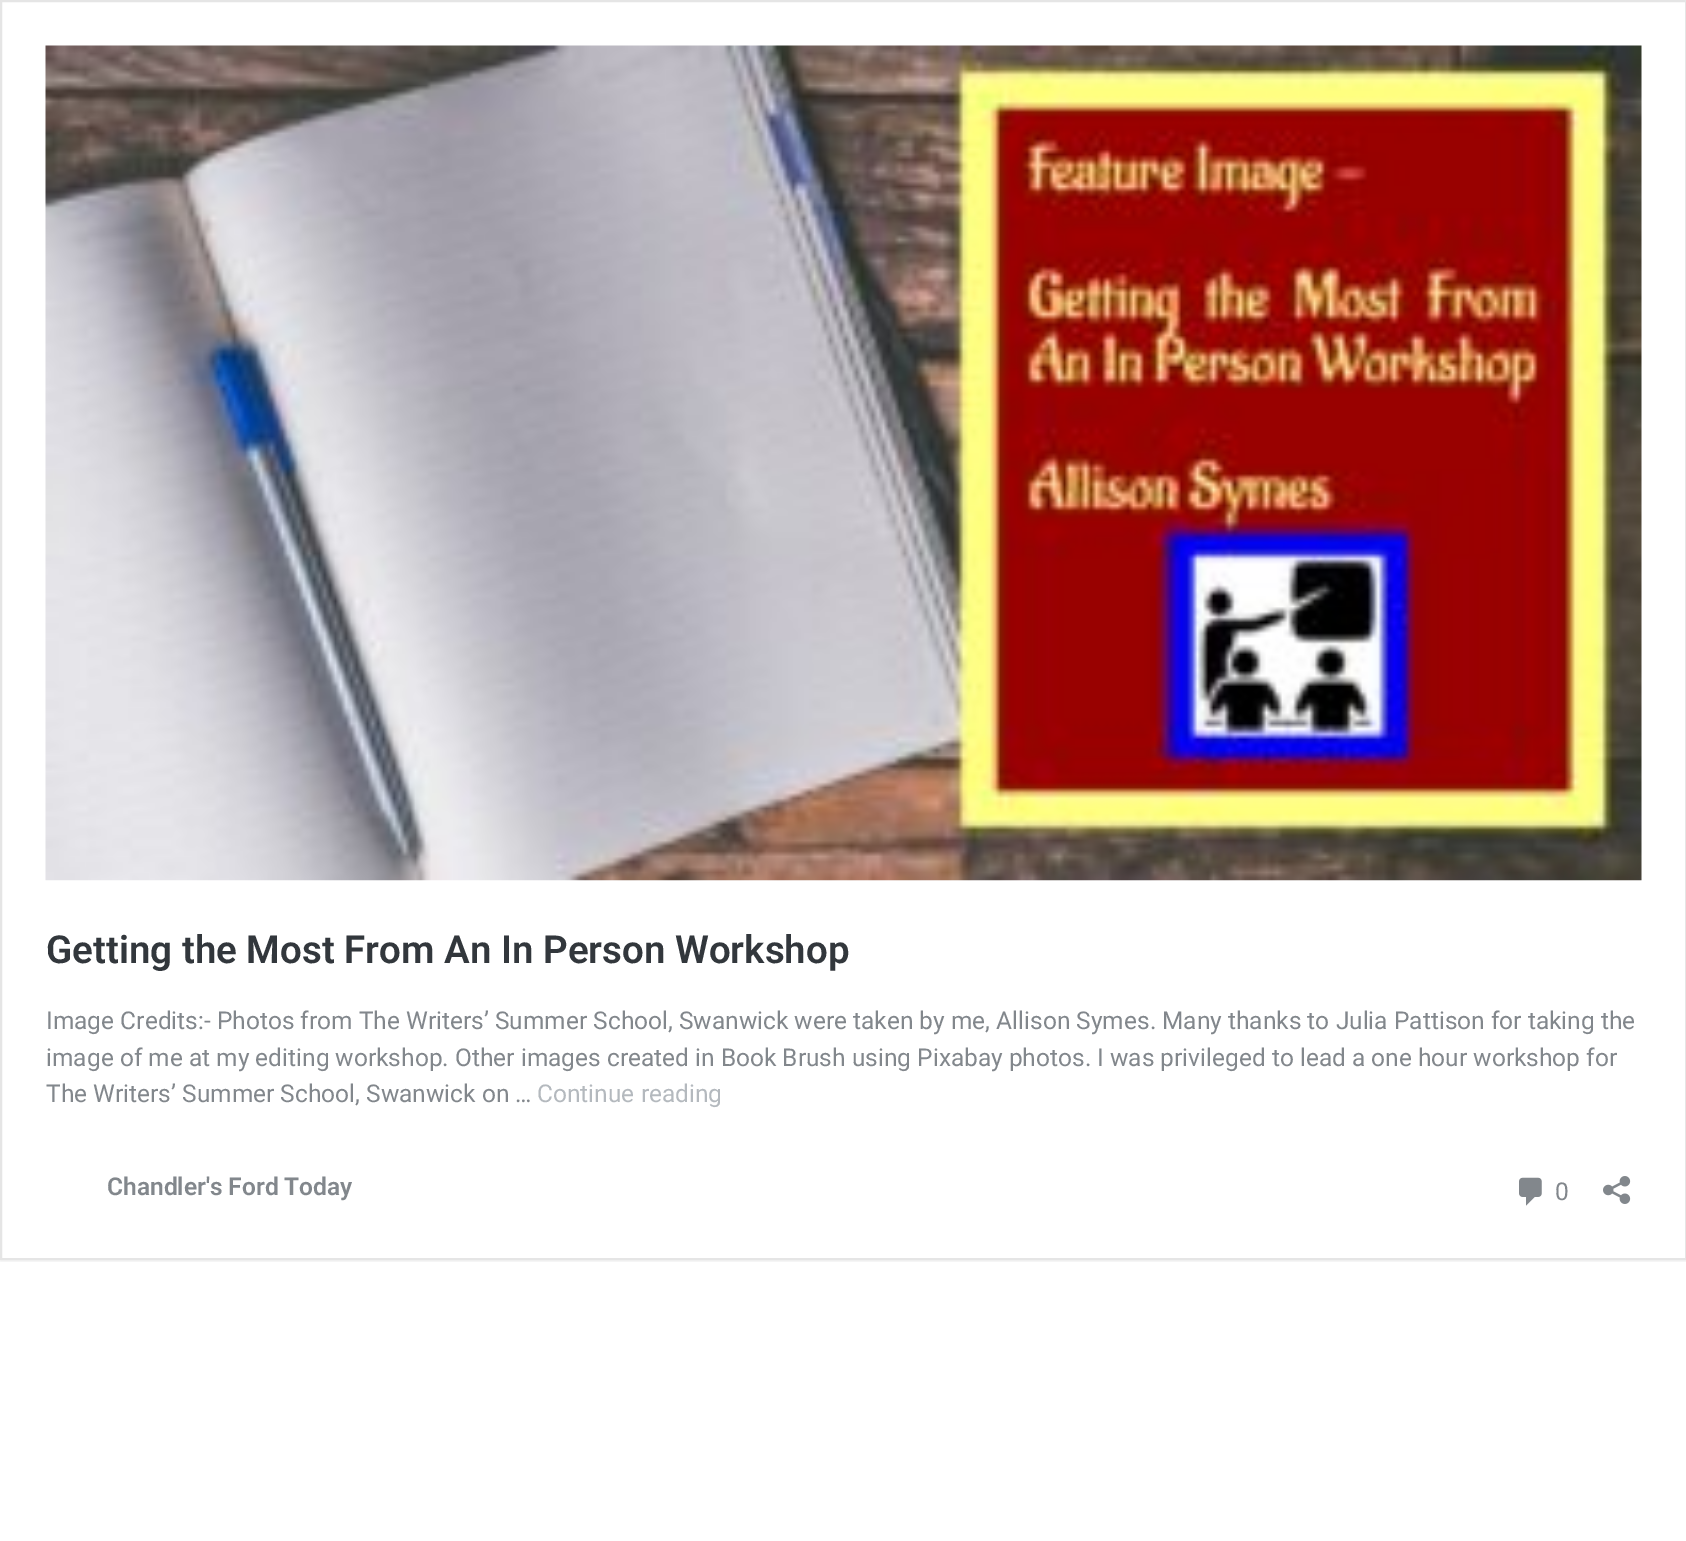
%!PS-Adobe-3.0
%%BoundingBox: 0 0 1686 1541
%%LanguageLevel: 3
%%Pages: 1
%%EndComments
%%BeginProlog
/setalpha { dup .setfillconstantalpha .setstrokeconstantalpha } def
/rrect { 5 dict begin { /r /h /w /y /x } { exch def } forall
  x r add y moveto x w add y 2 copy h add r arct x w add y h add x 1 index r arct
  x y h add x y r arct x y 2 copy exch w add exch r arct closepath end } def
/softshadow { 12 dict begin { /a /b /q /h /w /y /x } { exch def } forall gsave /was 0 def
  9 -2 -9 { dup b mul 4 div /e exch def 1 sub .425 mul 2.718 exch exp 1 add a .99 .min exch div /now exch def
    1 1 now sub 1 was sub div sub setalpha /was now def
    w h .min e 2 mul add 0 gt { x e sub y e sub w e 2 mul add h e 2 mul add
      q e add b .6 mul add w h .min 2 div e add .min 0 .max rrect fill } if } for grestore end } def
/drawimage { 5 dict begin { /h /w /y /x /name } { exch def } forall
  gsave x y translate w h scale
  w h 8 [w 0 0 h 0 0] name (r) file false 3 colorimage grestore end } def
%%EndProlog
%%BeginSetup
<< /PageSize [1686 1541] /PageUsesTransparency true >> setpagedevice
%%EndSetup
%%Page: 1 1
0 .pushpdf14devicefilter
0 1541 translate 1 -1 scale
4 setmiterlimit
1 setgray
0 0 1686 1541 rectfill
gsave
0 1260 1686 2 rectclip
0 setgray
0 2 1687 1260 0 1 0.05 softshadow
grestore
0.898 setgray
2 setlinewidth
1 1 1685 1258 rectstroke
(images/1.raw) 45 45 1597 836 drawimage
(images/2.raw) 1519 1177 23 29 drawimage
(images/3.raw) 1603 1176 28 28 drawimage
/Roboto-SemiBold [38.5 0 0 -38.5 0 0] selectfont
0.196 0.216 0.235 setrgbcolor
46 963 moveto (Getting the Most From An In Person Workshop) show
/Roboto-Regular [24.5 0 0 -24.5 0 0] selectfont
0.51 0.529 0.549 setrgbcolor
46 1029 moveto (Image Credits:- Photos from The Writers’ Summer School, Swanwick were taken by me, Allison Symes. Many thanks to Julia Pattison for taking the) show
46 1066 moveto (image of me at my editing workshop. Other images created in Book Brush using Pixabay photos. I was privileged to lead a one hour workshop for) show
46 1102 moveto (The Writers’ Summer School, Swanwick on …) show
0.706 0.725 0.745 setrgbcolor
537 1102 moveto (Continue reading) show
/Roboto-SemiBold [24.5 0 0 -24.5 0 0] selectfont
0.51 0.529 0.549 setrgbcolor
107 1195 moveto (Chandler's Ford Today) show
/Roboto-Regular [24.5 0 0 -24.5 0 0] selectfont
1555 1200 moveto (0) show
.poppdf14devicefilter showpage
%%EOF
